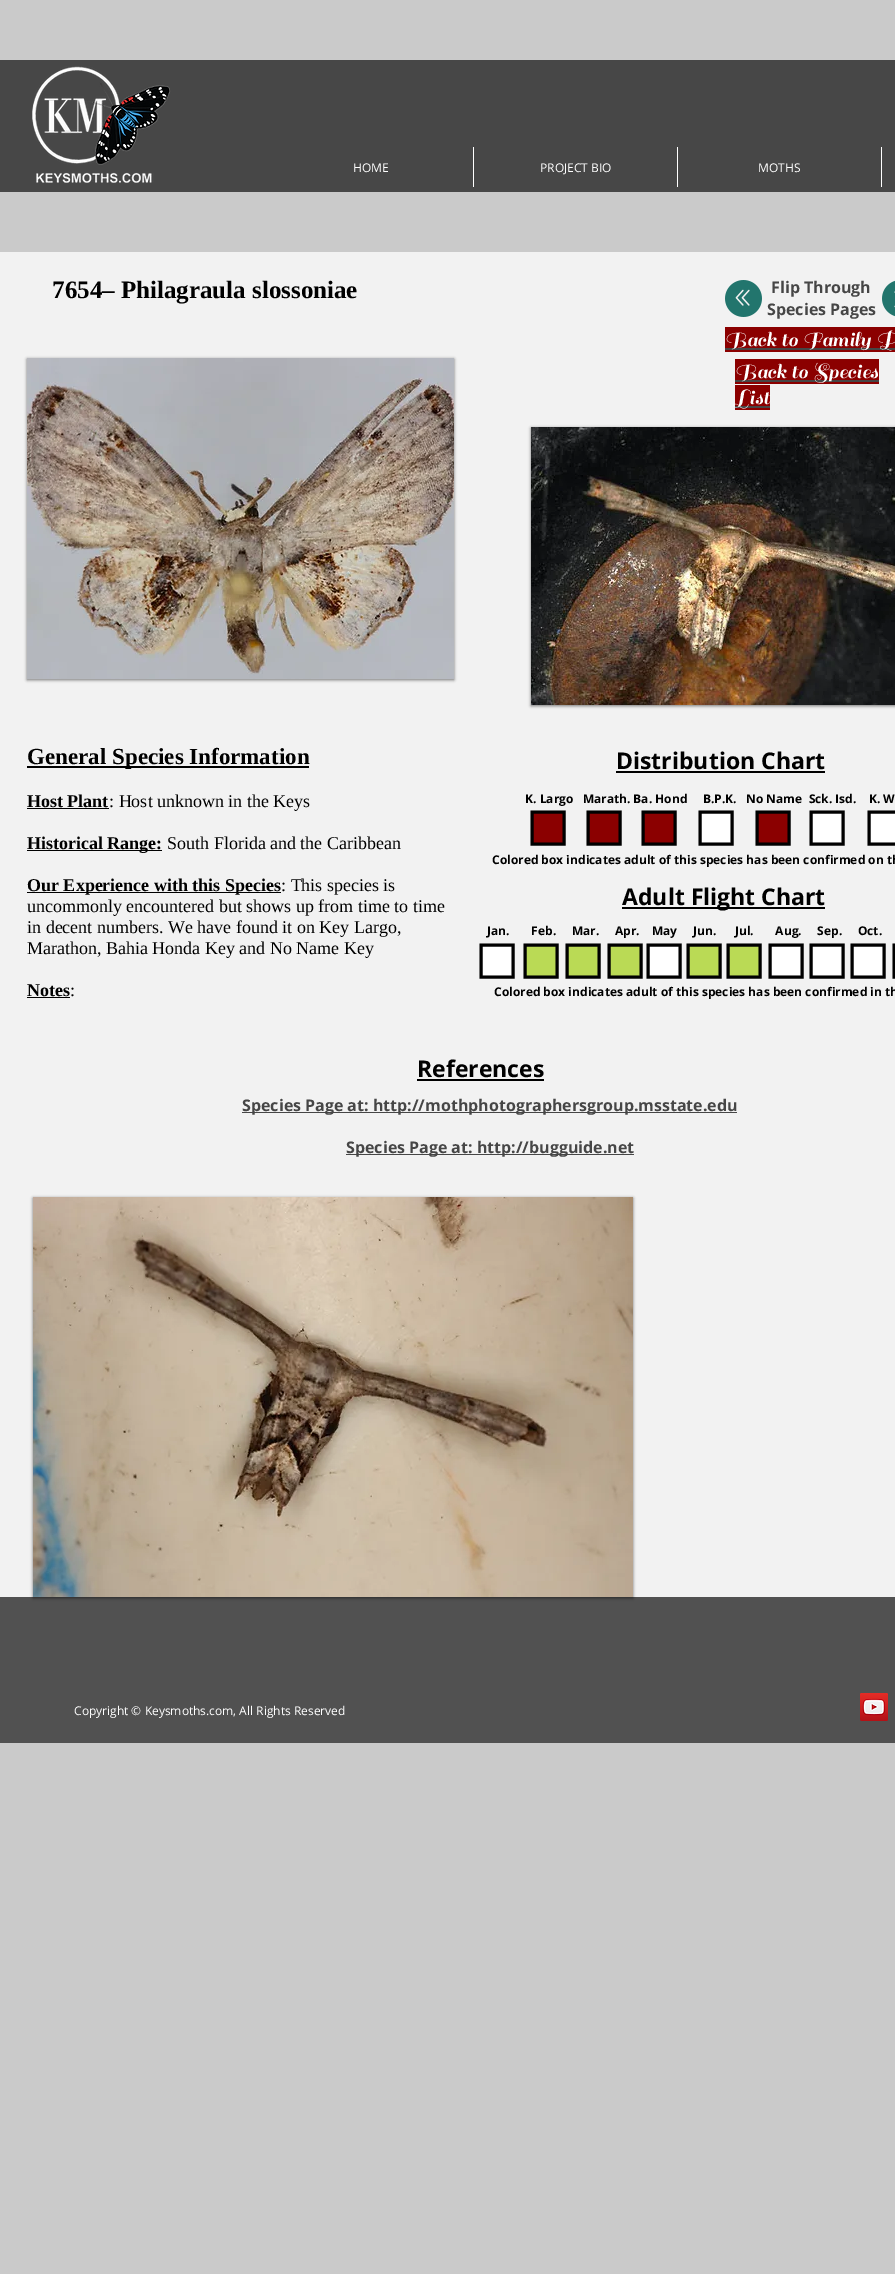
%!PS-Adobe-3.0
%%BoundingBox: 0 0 895 2274
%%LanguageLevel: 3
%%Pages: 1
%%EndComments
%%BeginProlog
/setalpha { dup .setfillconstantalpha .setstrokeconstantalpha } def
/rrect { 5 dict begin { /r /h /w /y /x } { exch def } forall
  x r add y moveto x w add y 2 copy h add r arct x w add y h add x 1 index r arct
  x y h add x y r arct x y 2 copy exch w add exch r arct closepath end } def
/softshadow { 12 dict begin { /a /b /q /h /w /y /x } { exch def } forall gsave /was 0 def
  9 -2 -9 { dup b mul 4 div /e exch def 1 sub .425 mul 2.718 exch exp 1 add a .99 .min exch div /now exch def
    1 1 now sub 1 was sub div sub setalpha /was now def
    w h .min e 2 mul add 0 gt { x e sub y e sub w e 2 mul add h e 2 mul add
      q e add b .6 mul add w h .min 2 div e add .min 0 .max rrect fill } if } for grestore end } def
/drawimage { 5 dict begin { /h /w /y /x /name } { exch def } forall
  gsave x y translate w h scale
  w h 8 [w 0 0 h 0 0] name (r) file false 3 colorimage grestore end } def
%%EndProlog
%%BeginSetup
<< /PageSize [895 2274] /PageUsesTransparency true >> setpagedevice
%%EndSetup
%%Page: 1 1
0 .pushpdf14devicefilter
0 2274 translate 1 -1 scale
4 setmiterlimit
0.792 setgray
0 0 895 2274 rectfill
0.278 setgray
0 60 895 132 rectfill
(images/1.raw) 32 66 139 117 drawimage
1 setgray
473 147 1 40 rectfill
677 147 1 40 rectfill
881 147 1 40 rectfill
0.949 setgray
0 252 895 1345 rectfill
(images/2.raw) 725 280 37 37 drawimage
(images/3.raw) 882 280 13 37 drawimage
0.545 0 0 setrgbcolor
725 327 170 25 rectfill
0.275 setgray
725 348 170 2 rectfill
0 setgray
27 359 427 321 0 1.5 0.5 softshadow
(images/4.raw) 27 358 427 321 drawimage
0.545 0 0 setrgbcolor
735 359 144 25 rectfill
0.275 setgray
735 380 144 2 rectfill
0.545 0 0 setrgbcolor
735 385 35 25 rectfill
0.275 setgray
735 406 35 2 rectfill
0 setgray
531 428 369 278 0 1.5 0.5 softshadow
(images/5.raw) 531 427 364 278 drawimage
27 766 282 2 rectfill
27 808 82 1 rectfill
27 850 135 1 rectfill
27 892 254 1 rectfill
27 997 43 1 rectfill
616 771 209 2 rectfill
0.545 0 0 setrgbcolor
533 813 30 30 rectfill
0 setgray
3 setlinewidth
newpath 564 812 moveto 564 844 lineto 532 844 lineto 532 812 lineto closepath stroke
0.545 0 0 setrgbcolor
589 813 30 30 rectfill
0 setgray
newpath 620 812 moveto 620 844 lineto 588 844 lineto 588 812 lineto closepath stroke
0.545 0 0 setrgbcolor
644 813 30 30 rectfill
0 setgray
newpath 675 812 moveto 675 844 lineto 643 844 lineto 643 812 lineto closepath stroke
1 setgray
701 813 30 30 rectfill
0 setgray
newpath 732 812 moveto 732 844 lineto 700 844 lineto 700 812 lineto closepath stroke
0.545 0 0 setrgbcolor
758 813 30 30 rectfill
0 setgray
newpath 789 812 moveto 789 844 lineto 757 844 lineto 757 812 lineto closepath stroke
1 setgray
812 813 30 30 rectfill
0 setgray
newpath 843 812 moveto 843 844 lineto 811 844 lineto 811 812 lineto closepath stroke
1 setgray
870 813 25 30 rectfill
0 setgray
newpath 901 812 moveto 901 844 lineto 869 844 lineto 869 812 lineto closepath stroke
622 907 203 2 rectfill
1 setgray
482 946 30 30 rectfill
0 setgray
newpath 513 945 moveto 513 977 lineto 481 977 lineto 481 945 lineto closepath stroke
0.729 0.855 0.333 setrgbcolor
526 946 30 30 rectfill
0 setgray
newpath 557 945 moveto 557 977 lineto 525 977 lineto 525 945 lineto closepath stroke
0.729 0.855 0.333 setrgbcolor
568 946 30 30 rectfill
0 setgray
newpath 599 945 moveto 599 977 lineto 567 977 lineto 567 945 lineto closepath stroke
0.729 0.855 0.333 setrgbcolor
610 946 30 30 rectfill
0 setgray
newpath 641 945 moveto 641 977 lineto 609 977 lineto 609 945 lineto closepath stroke
1 setgray
649 946 30 30 rectfill
0 setgray
newpath 680 945 moveto 680 977 lineto 648 977 lineto 648 945 lineto closepath stroke
0.729 0.855 0.333 setrgbcolor
689 946 30 30 rectfill
0 setgray
newpath 720 945 moveto 720 977 lineto 688 977 lineto 688 945 lineto closepath stroke
0.729 0.855 0.333 setrgbcolor
729 946 30 30 rectfill
0 setgray
newpath 760 945 moveto 760 977 lineto 728 977 lineto 728 945 lineto closepath stroke
1 setgray
771 946 30 30 rectfill
0 setgray
newpath 802 945 moveto 802 977 lineto 770 977 lineto 770 945 lineto closepath stroke
1 setgray
812 946 30 30 rectfill
0 setgray
newpath 843 945 moveto 843 977 lineto 811 977 lineto 811 945 lineto closepath stroke
1 setgray
853 946 30 30 rectfill
0 setgray
newpath 884 945 moveto 884 977 lineto 852 977 lineto 852 945 lineto closepath 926 945 moveto 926 977 lineto 894 977 lineto 894 945 lineto closepath stroke
417 1079 127 2 rectfill
0.275 setgray
242 1112 495 1 rectfill
346 1154 288 1 rectfill
0 setgray
33 1198 600 400 0 1.5 0.5 softshadow
(images/6.raw) 33 1197 600 400 drawimage
0.6 setalpha
0 1597 895 146 rectfill
1 setalpha
(images/7.raw) 860 1693 28 28 drawimage
/OpenSans-Regular [12 0 0 -12 0 0] selectfont
1 setgray
353 172 moveto (HOME) show
540 172 moveto (PROJECT BIO) show
758 172 moveto (MOTHS) show
/LiberationSerif-Bold [25 0 0 -25 0 0] selectfont
0 setgray
52 298 moveto (7654– Philagraula slossoniae) show
/OpenSans-Bold [16 0 0 -16 0 0] selectfont
0.275 setgray
771 293 moveto (Flip Through) show
767 315 moveto (Species Pages) show
/Sail-Regular [22 0 0 -22 0 0] selectfont
1 setgray
725 346 moveto (Back to Family P) show
735 378 moveto (Back to Species) show
735 404 moveto (List) show
/LiberationSerif-Bold [23 0 0 -23 0 0] selectfont
0 setgray
27 764 moveto (General Species Information) show
/LiberationSerif-Bold [18 0 0 -18 0 0] selectfont
27 807 moveto (Host Plant) show
/LiberationSerif-Regular [18 0 0 -18 0 0] selectfont
109 807 moveto (: Host unknown in the Keys) show
/LiberationSerif-Bold [18 0 0 -18 0 0] selectfont
27 849 moveto (Historical Range:) show
/LiberationSerif-Regular [18 0 0 -18 0 0] selectfont
167 849 moveto (South Florida and the Caribbean) show
/LiberationSerif-Bold [18 0 0 -18 0 0] selectfont
27 891 moveto (Our Experience with this Species) show
/LiberationSerif-Regular [18 0 0 -18 0 0] selectfont
281 891 moveto (: This species is) show
27 912 moveto (uncommonly encountered but shows up from time to time) show
27 933 moveto (in decent numbers. We have found it on Key Largo,) show
27 954 moveto (Marathon, Bahia Honda Key and No Name Key) show
/LiberationSerif-Bold [18 0 0 -18 0 0] selectfont
27 996 moveto (Notes) show
/LiberationSerif-Regular [18 0 0 -18 0 0] selectfont
70 996 moveto (:) show
/OpenSans-Bold [23 0 0 -23 0 0] selectfont
616 769 moveto (Distribution Chart) show
/OpenSans-Bold [12 0 0 -12 0 0] selectfont
525 803 moveto (K. Largo   Marath. Ba. Hond     B.P.K.   No Name  Sck. Isd.    K. W) show
492 864 moveto (Colored box indicates adult of this species has been confirmed on th) show
/OpenSans-Bold [23 0 0 -23 0 0] selectfont
622 905 moveto (Adult Flight Chart) show
/OpenSans-Bold [12 0 0 -12 0 0] selectfont
487 935 moveto (Jan.       Feb.     Mar.     Apr.    May     Jun.      Jul.       Aug.     Sep.     Oct.) show
494 996 moveto (Colored box indicates adult of this species has been confirmed in th) show
/OpenSans-Bold [23 0 0 -23 0 0] selectfont
417 1077 moveto (References) show
/OpenSans-Bold [16 0 0 -16 0 0] selectfont
0.275 setgray
242 1111 moveto (Species Page at: http://mothphotographersgroup.msstate.edu) show
346 1153 moveto (Species Page at: http://bugguide.net) show
/OpenSans-Regular [12 0 0 -12 0 0] selectfont
1 setgray
74 1715 moveto (Copyright © Keysmoths.com, All Rights Reserved) show
.poppdf14devicefilter showpage
%%EOF
